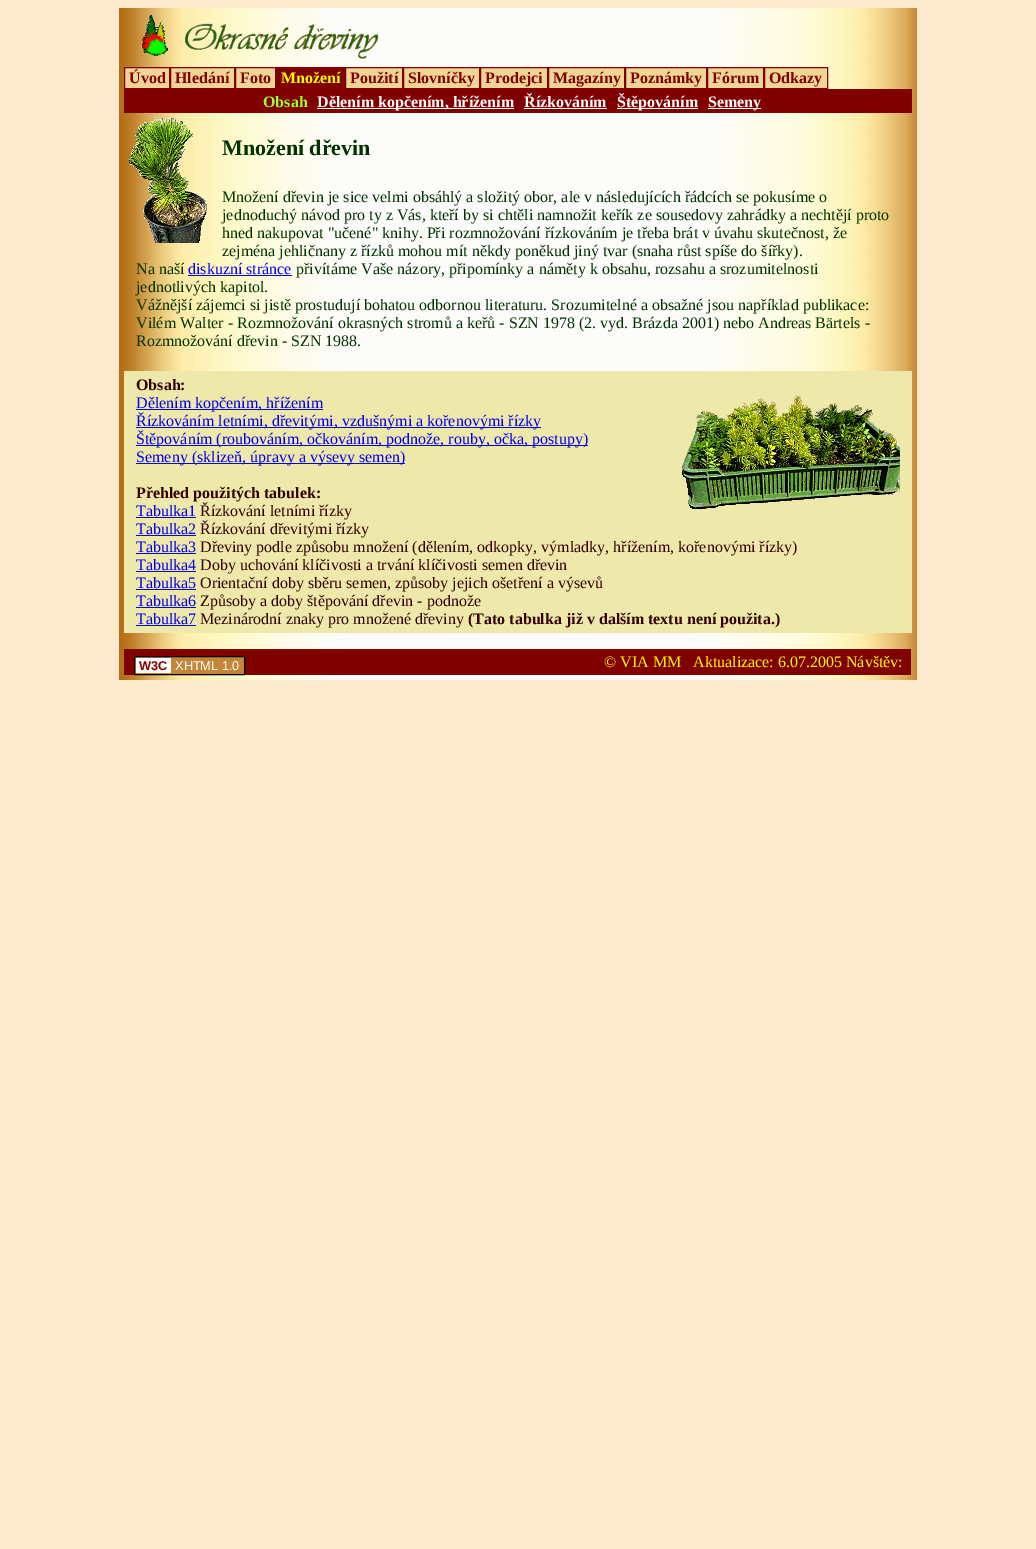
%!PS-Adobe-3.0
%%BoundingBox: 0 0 1036 1549
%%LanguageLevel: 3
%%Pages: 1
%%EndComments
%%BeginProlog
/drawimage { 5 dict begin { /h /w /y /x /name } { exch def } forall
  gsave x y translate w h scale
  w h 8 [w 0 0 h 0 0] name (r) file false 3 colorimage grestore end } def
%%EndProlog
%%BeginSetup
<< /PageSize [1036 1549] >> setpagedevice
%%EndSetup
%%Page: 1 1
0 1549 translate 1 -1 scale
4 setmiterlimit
0.992 0.918 0.8 setrgbcolor
0 0 1036 1549 rectfill
(images/1.raw) 119 8 798 672 drawimage
(images/2.raw) 141 15 238 44 drawimage
0.945 0.835 0.58 setrgbcolor
newpath 124.5 67.5 moveto 169.5 67.5 lineto 169.5 88.5 lineto 124.5 88.5 lineto closepath gsave fill grestore
0.502 0 0 setrgbcolor
stroke
0.945 0.835 0.58 setrgbcolor
newpath 170.5 67.5 moveto 234.5 67.5 lineto 234.5 88.5 lineto 170.5 88.5 lineto closepath gsave fill grestore
0.502 0 0 setrgbcolor
stroke
0.945 0.835 0.58 setrgbcolor
newpath 235.5 67.5 moveto 275.5 67.5 lineto 275.5 88.5 lineto 235.5 88.5 lineto closepath gsave fill grestore
0.502 0 0 setrgbcolor
stroke
276 67 69 22 rectfill
0.945 0.835 0.58 setrgbcolor
newpath 345.5 67.5 moveto 402.5 67.5 lineto 402.5 88.5 lineto 345.5 88.5 lineto closepath gsave fill grestore
0.502 0 0 setrgbcolor
stroke
0.945 0.835 0.58 setrgbcolor
newpath 403.5 67.5 moveto 479.5 67.5 lineto 479.5 88.5 lineto 403.5 88.5 lineto closepath gsave fill grestore
0.502 0 0 setrgbcolor
stroke
0.945 0.835 0.58 setrgbcolor
newpath 480.5 67.5 moveto 547.5 67.5 lineto 547.5 88.5 lineto 480.5 88.5 lineto closepath gsave fill grestore
0.502 0 0 setrgbcolor
stroke
0.945 0.835 0.58 setrgbcolor
newpath 548.5 67.5 moveto 624.5 67.5 lineto 624.5 88.5 lineto 548.5 88.5 lineto closepath gsave fill grestore
0.502 0 0 setrgbcolor
stroke
0.945 0.835 0.58 setrgbcolor
newpath 625.5 67.5 moveto 706.5 67.5 lineto 706.5 88.5 lineto 625.5 88.5 lineto closepath gsave fill grestore
0.502 0 0 setrgbcolor
stroke
0.945 0.835 0.58 setrgbcolor
newpath 707.5 67.5 moveto 763.5 67.5 lineto 763.5 88.5 lineto 707.5 88.5 lineto closepath gsave fill grestore
0.502 0 0 setrgbcolor
stroke
0.945 0.835 0.58 setrgbcolor
newpath 764.5 67.5 moveto 827.5 67.5 lineto 827.5 88.5 lineto 764.5 88.5 lineto closepath gsave fill grestore
0.502 0 0 setrgbcolor
stroke
124 89 788 24 rectfill
1 setgray
317 108 197 1 rectfill
524 108 83 1 rectfill
617 108 81 1 rectfill
708 108 53 1 rectfill
(images/3.raw) 128 117 79 126 drawimage
0 0 0.933 setrgbcolor
188 275 104 1 rectfill
0.933 0.91 0.667 setrgbcolor
124 371 788 262 rectfill
0 0 0.933 setrgbcolor
136 409 187 1 rectfill
(images/4.raw) 682 395 218 114 drawimage
136 427 405 1 rectfill
136 445 452 1 rectfill
136 463 269 1 rectfill
136 517 60 1 rectfill
136 535 60 1 rectfill
136 553 60 1 rectfill
136 571 60 1 rectfill
136 589 60 1 rectfill
136 607 60 1 rectfill
136 625 60 1 rectfill
0.502 0 0 setrgbcolor
124 649 787 26 rectfill
0.769 0.522 0.212 setrgbcolor
newpath 134.5 656.5 moveto 244.5 656.5 lineto 244.5 674.5 lineto 134.5 674.5 lineto closepath gsave fill grestore
0 setgray
stroke
1 setgray
136 658 35 15 rectfill
/LiberationSerif-Bold [16 0 0 -16 0 0] selectfont
0.502 0 0 setrgbcolor
129 83 moveto (Úvod) show
175 83 moveto (Hledání) show
240 83 moveto (Foto) show
1 1 0 setrgbcolor
281 83 moveto (Množení) show
0.502 0 0 setrgbcolor
350 83 moveto (Použití) show
408 83 moveto (Slovníčky) show
485 83 moveto (Prodejci) show
553 83 moveto (Magazíny) show
630 83 moveto (Poznámky) show
712 83 moveto (Fórum) show
769 83 moveto (Odkazy) show
0.6 1 0.2 setrgbcolor
263 107 moveto (Obsah) show
1 setgray
317 107 moveto (Dělením kopčením, hřížením) show
524 107 moveto (Řízkováním) show
617 107 moveto (Štěpováním) show
708 107 moveto (Semeny) show
/LiberationSerif-Bold [22 0 0 -22 0 0] selectfont
0 0.2 0 setrgbcolor
222 155 moveto (Množení dřevin) show
/LiberationSerif-Regular [16 0 0 -16 0 0] selectfont
222 202 moveto (Množení dřevin je sice velmi obsáhlý a složitý obor, ale v následujících řádcích se pokusíme o) show
222 220 moveto (jednoduchý návod pro ty z Vás, kteří by si chtěli namnožit keřík ze sousedovy zahrádky a nechtějí proto) show
222 238 moveto (hned nakupovat "učené" knihy. Při rozmnožování řízkováním je třeba brát v úvahu skutečnost, že) show
222 256 moveto (zejména jehličnany z řízků mohou mít někdy poněkud jiný tvar \(snaha růst spíše do šířky\).) show
136 274 moveto (Na naší) show
0 0 0.933 setrgbcolor
188 274 moveto (diskuzní stránce) show
0 0.2 0 setrgbcolor
296 274 moveto (přivítáme Vaše názory, připomínky a náměty k obsahu, rozsahu a srozumitelnosti) show
136 292 moveto (jednotlivých kapitol.) show
136 310 moveto (Vážnější zájemci si jistě prostudují bohatou odbornou literaturu. Srozumitelné a obsažné jsou například publikace:) show
136 328 moveto (Vilém Walter - Rozmnožování okrasných stromů a keřů - SZN 1978 \(2. vyd. Brázda 2001\) nebo Andreas Bärtels -) show
136 346 moveto (Rozmnožování dřevin - SZN 1988.) show
/LiberationSerif-Bold [16 0 0 -16 0 0] selectfont
0.2 0 0 setrgbcolor
136 390 moveto (Obsah:) show
/LiberationSerif-Regular [16 0 0 -16 0 0] selectfont
0 0 0.933 setrgbcolor
136 408 moveto (Dělením kopčením, hřížením) show
136 426 moveto (Řízkováním letními, dřevitými, vzdušnými a kořenovými řízky) show
136 444 moveto (Štěpováním \(roubováním, očkováním, podnože, rouby, očka, postupy\)) show
136 462 moveto (Semeny \(sklizeň, úpravy a výsevy semen\)) show
/LiberationSerif-Bold [16 0 0 -16 0 0] selectfont
0.2 0 0 setrgbcolor
136 498 moveto (Přehled použitých tabulek:) show
/LiberationSerif-Regular [16 0 0 -16 0 0] selectfont
0 0 0.933 setrgbcolor
136 516 moveto (Tabulka1) show
0.2 0 0 setrgbcolor
200 516 moveto (Řízkování letními řízky) show
0 0 0.933 setrgbcolor
136 534 moveto (Tabulka2) show
0.2 0 0 setrgbcolor
200 534 moveto (Řízkování dřevitými řízky) show
0 0 0.933 setrgbcolor
136 552 moveto (Tabulka3) show
0.2 0 0 setrgbcolor
200 552 moveto (Dřeviny podle způsobu množení \(dělením, odkopky, výmladky, hřížením, kořenovými řízky\)) show
0 0 0.933 setrgbcolor
136 570 moveto (Tabulka4) show
0.2 0 0 setrgbcolor
200 570 moveto (Doby uchování klíčivosti a trvání klíčivosti semen dřevin) show
0 0 0.933 setrgbcolor
136 588 moveto (Tabulka5) show
0.2 0 0 setrgbcolor
200 588 moveto (Orientační doby sběru semen, způsoby jejich ošetření a výsevů) show
0 0 0.933 setrgbcolor
136 606 moveto (Tabulka6) show
0.2 0 0 setrgbcolor
200 606 moveto (Způsoby a doby štěpování dřevin - podnože) show
0 0 0.933 setrgbcolor
136 624 moveto (Tabulka7) show
0.2 0 0 setrgbcolor
200 624 moveto (Mezinárodní znaky pro množené dřeviny) show
/LiberationSerif-Bold [16 0 0 -16 0 0] selectfont
468 624 moveto (\(Tato tabulka již v dalším textu není použita.\)) show
/LiberationSans-Bold [12.75 0 0 -12.75 0 0] selectfont
0.502 0 0 setrgbcolor
139 670 moveto (W3C) show
/LiberationSans-Regular [12.75 0 0 -12.75 0 0] selectfont
1 setgray
175 670 moveto (XHTML 1.0) show
/LiberationSerif-Regular [16 0 0 -16 0 0] selectfont
1 1 0 setrgbcolor
604 667 moveto (© VIA MM   Aktualizace: 6.07.2005 Návštěv:) show
showpage
%%EOF
